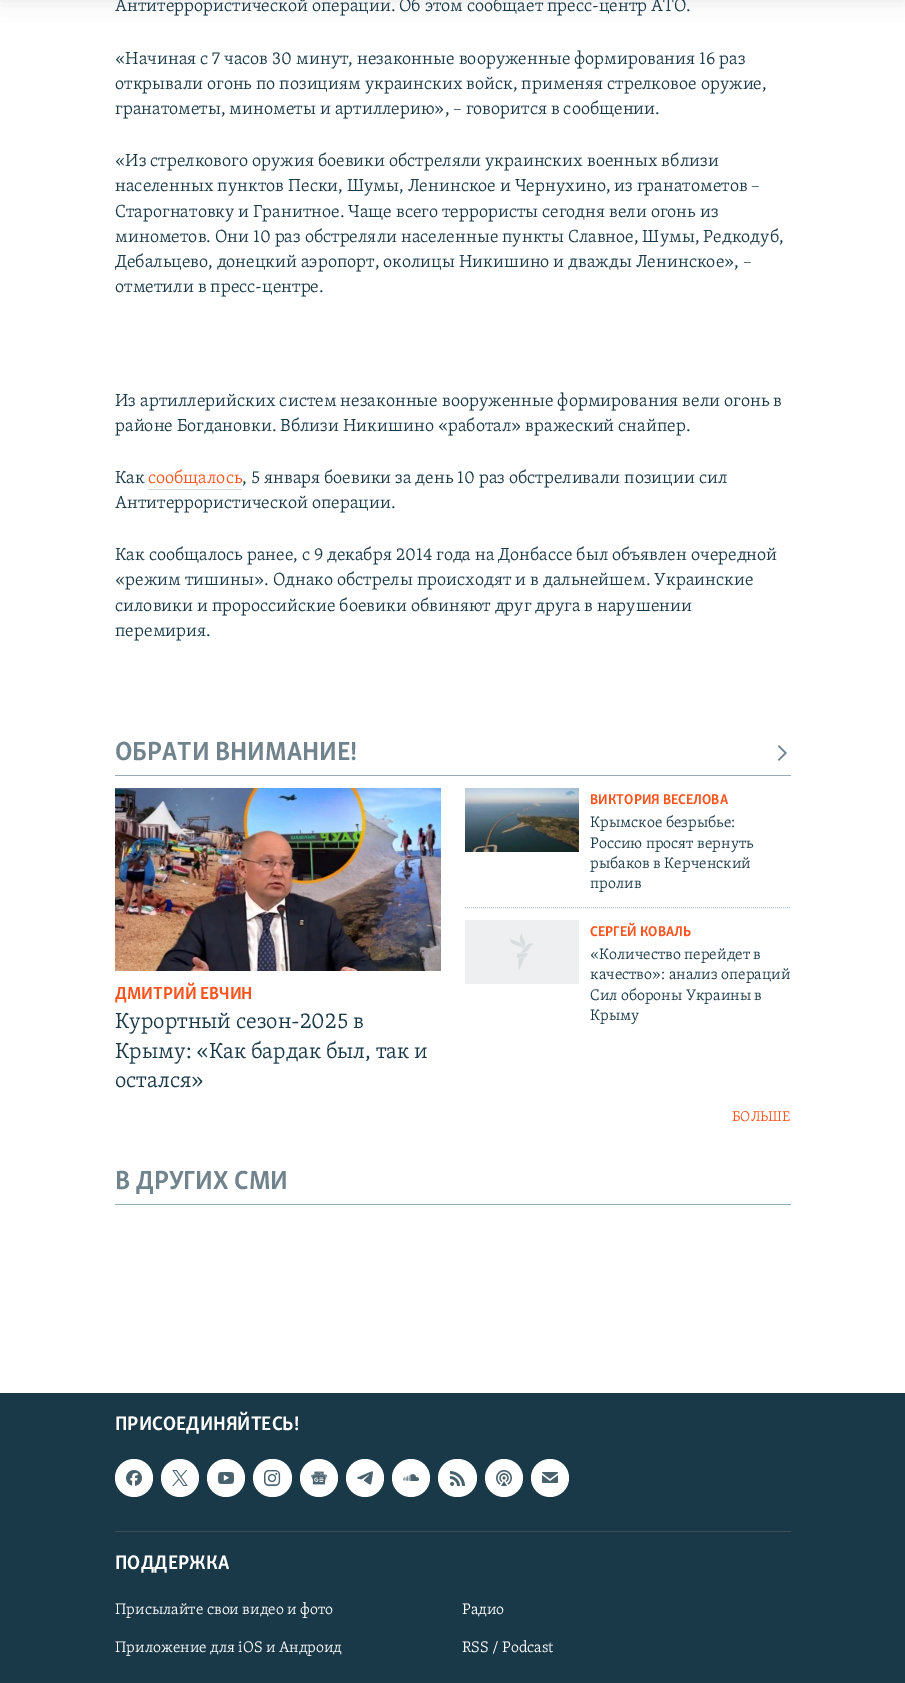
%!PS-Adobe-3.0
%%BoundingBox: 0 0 905 1683
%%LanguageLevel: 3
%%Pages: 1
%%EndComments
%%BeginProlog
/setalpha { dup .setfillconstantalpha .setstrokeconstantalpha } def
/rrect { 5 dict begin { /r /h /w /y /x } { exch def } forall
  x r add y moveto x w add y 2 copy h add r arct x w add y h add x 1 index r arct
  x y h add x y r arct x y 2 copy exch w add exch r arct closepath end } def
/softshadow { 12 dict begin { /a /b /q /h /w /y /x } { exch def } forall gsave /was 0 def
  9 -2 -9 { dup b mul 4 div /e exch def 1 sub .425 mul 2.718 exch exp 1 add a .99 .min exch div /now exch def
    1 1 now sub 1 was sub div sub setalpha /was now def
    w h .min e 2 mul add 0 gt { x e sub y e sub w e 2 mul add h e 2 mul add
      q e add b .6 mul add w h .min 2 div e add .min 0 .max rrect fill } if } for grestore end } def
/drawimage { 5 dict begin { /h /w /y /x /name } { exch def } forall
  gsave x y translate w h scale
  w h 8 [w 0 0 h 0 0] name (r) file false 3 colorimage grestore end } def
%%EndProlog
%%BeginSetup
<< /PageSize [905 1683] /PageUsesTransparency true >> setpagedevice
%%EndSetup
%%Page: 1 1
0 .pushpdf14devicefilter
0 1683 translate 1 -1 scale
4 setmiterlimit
1 setgray
0 0 905 1683 rectfill
0 setgray
0 -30 905 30 0 10 0.1 softshadow
0.8 0.847 0.871 setrgbcolor
148 489 94 1 rectfill
0.584 0.678 0.725 setrgbcolor
115 775 676 1 rectfill
(images/1.raw) 777 745 10 16 drawimage
(images/2.raw) 465 788 114 64 drawimage
0.706 0.773 0.804 setrgbcolor
[1 1] 0 setdash
newpath 465 907.5 moveto 791 907.5 lineto stroke
0.929 0.937 0.941 setrgbcolor
465 920 114 64 rectfill
(images/3.raw) 510 933 24 37 drawimage
(images/4.raw) 115 788 326 183 drawimage
0.584 0.678 0.725 setrgbcolor
115 1204 676 1 rectfill
0.102 0.224 0.282 setrgbcolor
0 1393 905 290 rectfill
1 setgray
newpath 134 1478 19 0 360 arc closepath fill
(images/5.raw) 126 1470 16 16 drawimage
newpath 180 1478 19 0 360 arc closepath fill
(images/6.raw) 172 1470 16 16 drawimage
newpath 226 1478 19 0 360 arc closepath fill
(images/7.raw) 218 1472 16 12 drawimage
253 1459 39 38 19 rrect fill
(images/8.raw) 264 1470 17 16 drawimage
newpath 319 1478 19 0 360 arc closepath fill
(images/9.raw) 311 1471 16 14 drawimage
newpath 365 1478 19 0 360 arc closepath fill
(images/10.raw) 357 1471 16 14 drawimage
newpath 411 1478 19 0 360 arc closepath fill
(images/11.raw) 403 1474 16 7 drawimage
438 1459 39 38 19 rrect fill
(images/12.raw) 450 1471 15 15 drawimage
newpath 504 1478 19 0 360 arc closepath fill
(images/13.raw) 496 1470 16 16 drawimage
newpath 550 1478 19 0 360 arc closepath fill
(images/14.raw) 542 1472 16 11 drawimage
0.243 0.31 0.341 setrgbcolor
115 1531 676 1 rectfill
/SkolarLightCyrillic-Light [18 0 0 -18 0 0] selectfont
0.102 0.224 0.282 setrgbcolor
115 11 moveto (Антитеррористической операции. Об этом сообщает пресс-центр АТО.) show
115 64 moveto («Начиная с 7 часов 30 минут, незаконные вооруженные формирования 16 раз) show
115 89 moveto (открывали огонь по позициям украинских войск, применяя стрелковое оружие,) show
115 114 moveto (гранатометы, минометы и артиллерию», – говорится в сообщении.) show
115 166 moveto («Из стрелкового оружия боевики обстреляли украинских военных вблизи) show
115 191 moveto (населенных пунктов Пески, Шумы, Ленинское и Чернухино, из гранатометов –) show
115 217 moveto (Старогнатовку и Гранитное. Чаще всего террористы сегодня вели огонь из) show
115 242 moveto (минометов. Они 10 раз обстреляли населенные пункты Славное, Шумы, Редкодуб,) show
115 267 moveto (Дебальцево, донецкий аэропорт, околицы Никишино и дважды Ленинское», –) show
115 292 moveto (отметили в пресс-центре.) show
115 406 moveto (Из артиллерийских систем незаконные вооруженные формирования вели огонь в) show
115 431 moveto (районе Богдановки. Вблизи Никишино «работал» вражеский снайпер.) show
115 483 moveto (Как) show
0.98 0.329 0.125 setrgbcolor
148 483 moveto (сообщалось) show
0.102 0.224 0.282 setrgbcolor
242 483 moveto (, 5 января боевики за день 10 раз обстреливали позиции сил) show
115 508 moveto (Антитеррористической операции.) show
115 560 moveto (Как сообщалось ранее, с 9 декабря 2014 года на Донбассе был объявлен очередной) show
115 585 moveto («режим тишины». Однако обстрелы происходят и в дальнейшем. Украинские) show
115 611 moveto (силовики и пророссийские боевики обвиняют друг друга в нарушении) show
115 636 moveto (перемирия.) show
/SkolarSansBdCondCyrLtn-Bold [27 0 0 -27 0 0] selectfont
0.443 0.514 0.553 setrgbcolor
115 760 moveto (ОБРАТИ ВНИМАНИЕ!) show
/SkolarSansBdCondCyrLtn-Bold [14.6 0 0 -14.6 0 0] selectfont
0.98 0.329 0.125 setrgbcolor
590 804 moveto (ВИКТОРИЯ ВЕСЕЛОВА) show
/SkolarLightCyrillic-Light [15.75 0 0 -15.75 0 0] selectfont
0.102 0.224 0.282 setrgbcolor
590 827 moveto (Крымское безрыбье:) show
590 848 moveto (Россию просят вернуть) show
590 868 moveto (рыбаков в Керченский) show
590 888 moveto (пролив) show
/SkolarSansBdCondCyrLtn-Bold [14.6 0 0 -14.6 0 0] selectfont
0.98 0.329 0.125 setrgbcolor
590 936 moveto (СЕРГЕЙ КОВАЛЬ) show
/SkolarLightCyrillic-Light [15.75 0 0 -15.75 0 0] selectfont
0.102 0.224 0.282 setrgbcolor
590 959 moveto («Количество перейдет в) show
590 979 moveto (качество»: анализ операций) show
590 1000 moveto (Сил обороны Украины в) show
590 1020 moveto (Крыму) show
/SkolarSansBdCondCyrLtn-Bold [18 0 0 -18 0 0] selectfont
0.98 0.329 0.125 setrgbcolor
115 999 moveto (ДМИТРИЙ ЕВЧИН) show
/SkolarLightCyrillic-Light [22.5 0 0 -22.5 0 0] selectfont
0.102 0.224 0.282 setrgbcolor
115 1028 moveto (Курортный сезон-2025 в) show
115 1058 moveto (Крыму: «Как бардак был, так и) show
115 1087 moveto (остался») show
/SkolarLightCyrillic-Light [14.6 0 0 -14.6 0 0] selectfont
0.98 0.329 0.125 setrgbcolor
732 1121 moveto (БОЛЬШЕ) show
/SkolarSansBdCondCyrLtn-Bold [27 0 0 -27 0 0] selectfont
0.443 0.514 0.553 setrgbcolor
115 1189 moveto (В ДРУГИХ СМИ) show
/SkolarSansBdCondCyrLtn-Bold [20.25 0 0 -20.25 0 0] selectfont
1 setgray
115 1430 moveto (ПРИСОЕДИНЯЙТЕСЬ!) show
115 1569 moveto (ПОДДЕРЖКА) show
/SkolarLightCyrillic-Light [15.75 0 0 -15.75 0 0] selectfont
115 1614 moveto (Присылайте свои видео и фото) show
462 1614 moveto (Радио) show
115 1652 moveto (Приложение для iOS и Андроид) show
462 1652 moveto (RSS / Podcast) show
.poppdf14devicefilter showpage
%%EOF
